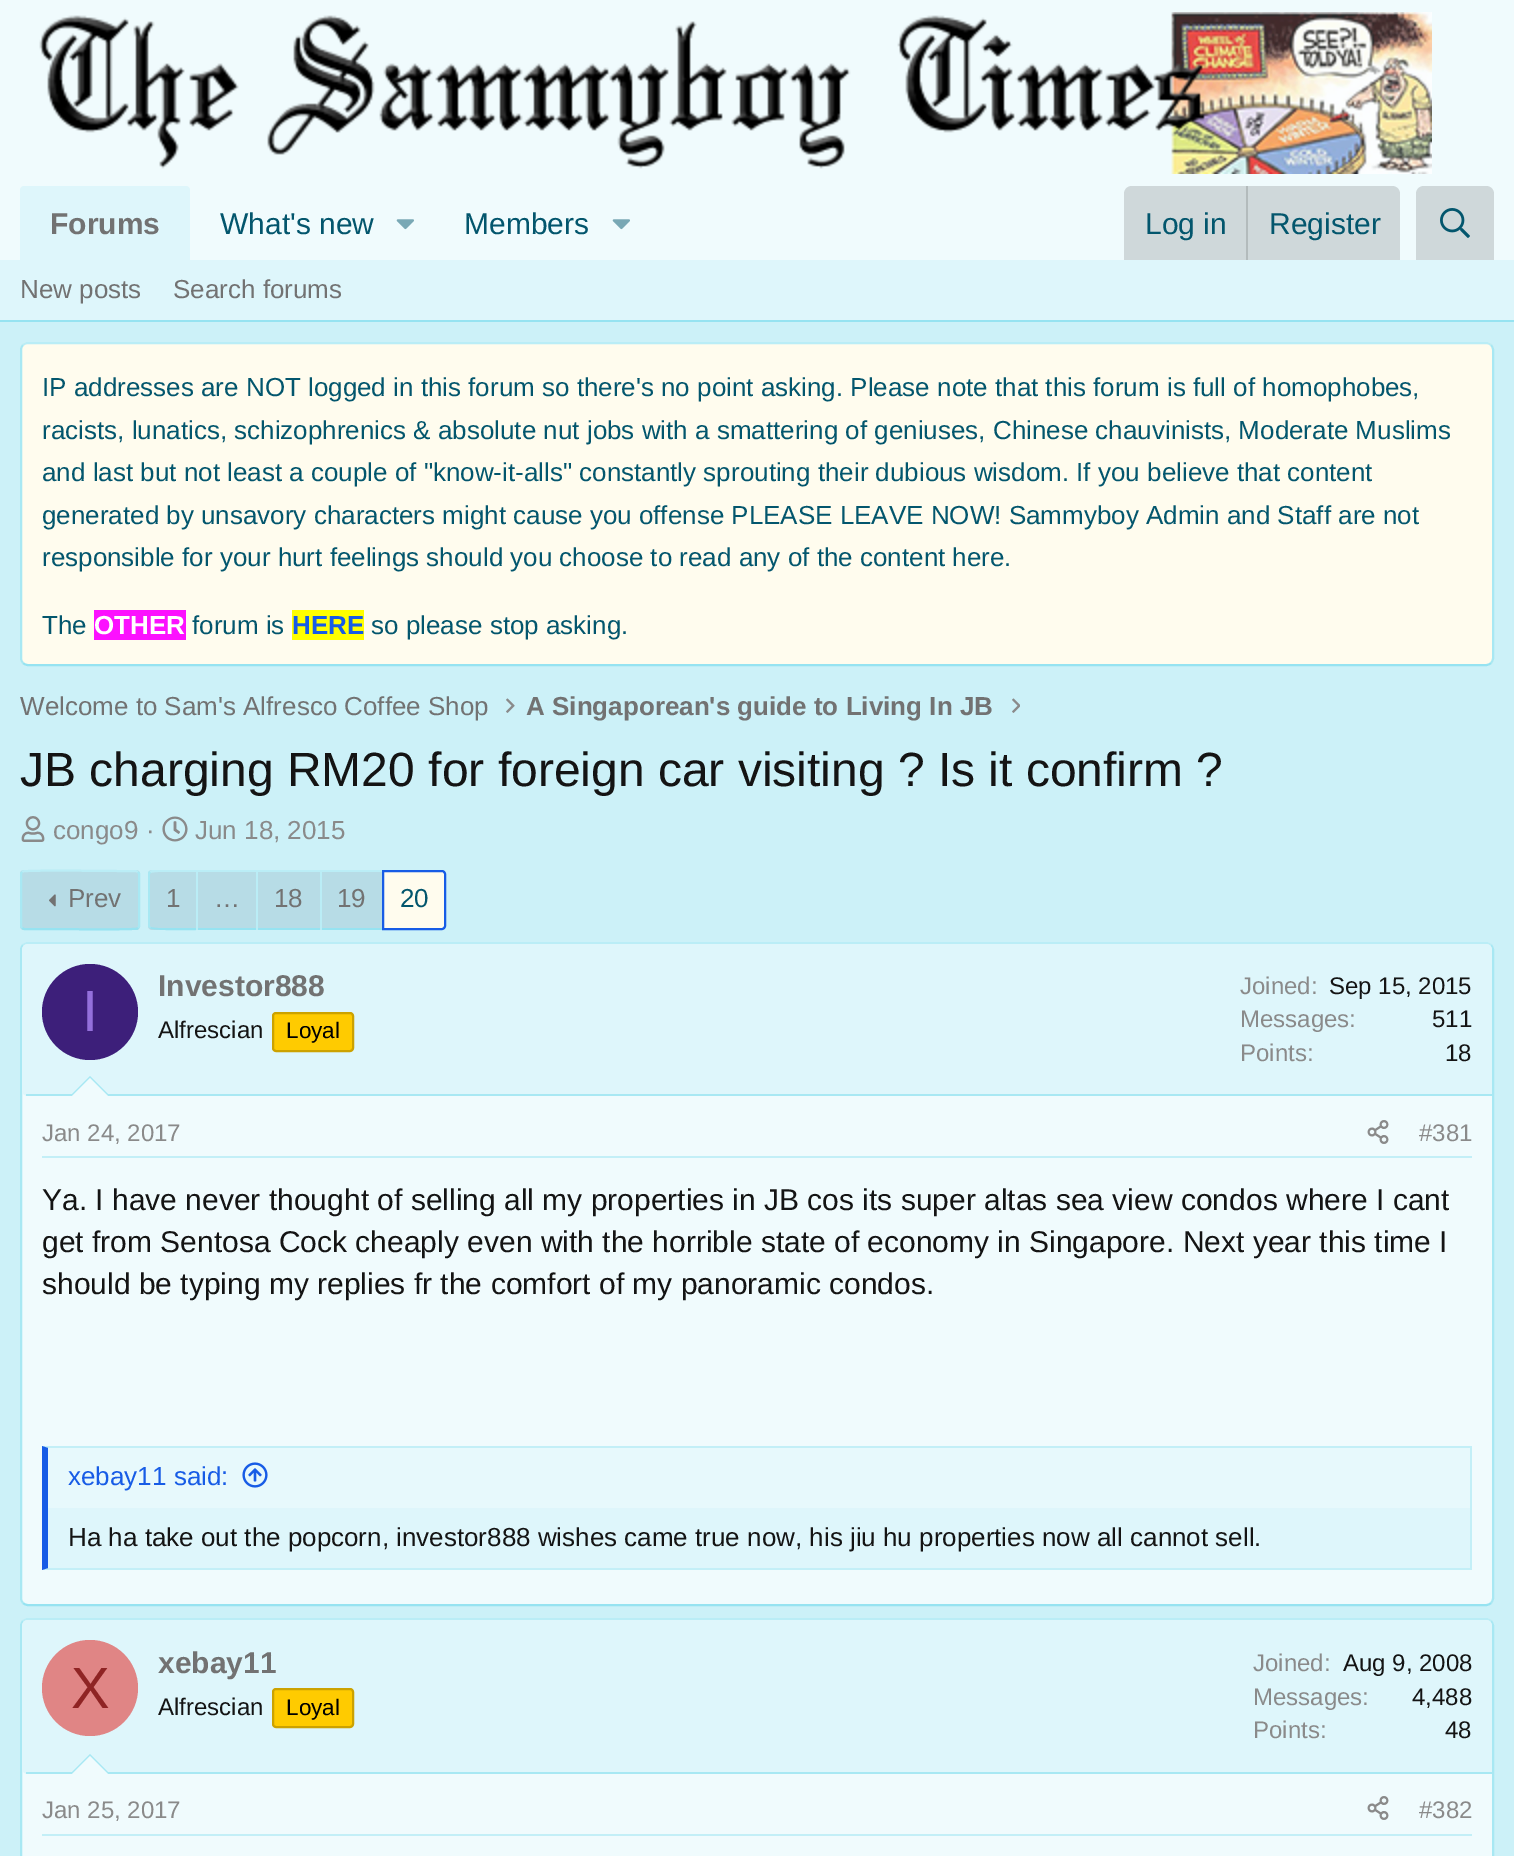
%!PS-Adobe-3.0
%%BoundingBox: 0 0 1514 1856
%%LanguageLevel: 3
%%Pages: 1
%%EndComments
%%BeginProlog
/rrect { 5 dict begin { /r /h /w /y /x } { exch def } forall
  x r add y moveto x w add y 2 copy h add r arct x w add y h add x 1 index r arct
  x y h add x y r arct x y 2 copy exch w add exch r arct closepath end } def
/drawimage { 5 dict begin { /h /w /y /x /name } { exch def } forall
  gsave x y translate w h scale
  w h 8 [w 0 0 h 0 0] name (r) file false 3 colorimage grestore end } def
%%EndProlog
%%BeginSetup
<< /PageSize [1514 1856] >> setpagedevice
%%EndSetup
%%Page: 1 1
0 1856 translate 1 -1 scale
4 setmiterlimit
0.8 0.945 0.973 setrgbcolor
0 0 1514 1856 rectfill
0.941 0.984 0.992 setrgbcolor
0 0 1514 260 rectfill
(images/1.raw) 39 12 1393 162 drawimage
0.871 0.965 0.984 setrgbcolor
newpath 24 186 moveto 186 186 lineto 188 186 190 188 190 190 curveto 190 260 lineto 20 260 lineto 20 190 lineto 20 188 22 186 24 186 curveto closepath fill
(images/2.raw) 396 219 18 11 drawimage
(images/2.raw) 612 219 18 11 drawimage
0.812 0.847 0.855 setrgbcolor
newpath 1132 186 moveto 1392 186 lineto 1396.5 186 1400 189.5 1400 194 curveto 1400 260 lineto 1124 260 lineto 1124 194 lineto 1124 189.5 1127.5 186 1132 186 curveto closepath fill
0.702 0.733 0.737 setrgbcolor
1246 186 2 74 rectfill
0.812 0.847 0.855 setrgbcolor
newpath 1424 186 moveto 1486 186 lineto 1490.5 186 1494 189.5 1494 194 curveto 1494 260 lineto 1416 260 lineto 1416 194 lineto 1416 189.5 1419.5 186 1424 186 curveto closepath fill
(images/3.raw) 1440 208 30 30 drawimage
0.871 0.965 0.984 setrgbcolor
0 260 1514 60 rectfill
0.588 0.89 0.945 setrgbcolor
0 320 1514 2 rectfill
1 0.988 0.933 setrgbcolor
20 342 1474 324 8 rrect fill
0.729 0.929 0.965 setrgbcolor
2 setlinewidth
newpath 23 345 moveto 24.5 343.5 26 343 28 343 curveto 1486 343 lineto 1488 343 1489.5 343.5 1491 345 curveto stroke
0.659 0.91 0.953 setrgbcolor
newpath 1491 345 moveto 1492.5 346.5 1493 348 1493 350 curveto 1493 658 lineto 1493 660 1492.5 661.5 1491 663 curveto stroke
0.588 0.89 0.945 setrgbcolor
newpath 1491 663 moveto 1489.5 664.5 1488 665 1486 665 curveto 28 665 lineto 26 665 24.5 664.5 23 663 curveto stroke
0.659 0.91 0.953 setrgbcolor
newpath 23 663 moveto 21.5 661.5 21 660 21 658 curveto 21 350 lineto 21 348 21.5 346.5 23 345 curveto stroke
0.988 0.063 1 setrgbcolor
94 610 92 30 rectfill
1 1 0 setrgbcolor
292 610 72 30 rectfill
(images/4.raw) 506 698 9 15 drawimage
(images/5.raw) 1012 698 8 15 drawimage
(images/6.raw) 21 816 24 26 drawimage
(images/7.raw) 162 816 26 26 drawimage
0.718 0.863 0.902 setrgbcolor
20 870 120 60 4 rrect fill
0.729 0.929 0.965 setrgbcolor
newpath 22 872 moveto 22.5 871.5 lineto 24.5 870 107.5 871 117.5 871 curveto 136 871 lineto 138 872 lineto stroke
0.659 0.91 0.953 setrgbcolor
newpath 138 872 moveto 139 873.5 lineto 139 926.5 lineto 138 928 lineto stroke
0.588 0.89 0.945 setrgbcolor
newpath 138 928 moveto 137.5 928.5 lineto 135.5 930 52.5 929 42.5 929 curveto 24 929 lineto 22 928 lineto stroke
0.659 0.91 0.953 setrgbcolor
newpath 22 928 moveto 21 926.5 lineto 21 873.5 lineto 22 872 lineto stroke
(images/8.raw) 49 894 7 13 drawimage
0.718 0.863 0.902 setrgbcolor
newpath 152 870 moveto 196 870 lineto 196 930 lineto 152 930 lineto 150 930 148 928 148 926 curveto 148 874 lineto 148 872 150 870 152 870 curveto closepath fill
0.729 0.929 0.965 setrgbcolor
newpath 152 870 moveto 149 871 lineto 151 873 lineto 152 871 191 872 196 872 curveto 196 870 lineto closepath fill
0.588 0.89 0.945 setrgbcolor
newpath 196 930 moveto 190 930 152 931 150 928 curveto 151 927 lineto 152 929 191 928 196 928 curveto closepath fill
0.659 0.91 0.953 setrgbcolor
newpath 148 873 moveto 148 927 lineto 150 928 lineto 151 927 lineto 150 926 lineto 150 874 lineto 151 873 lineto 149 871 lineto closepath fill
0.718 0.863 0.902 setrgbcolor
198 872 58 56 rectfill
0.729 0.929 0.965 setrgbcolor
196 870 186 2 rectfill
0.588 0.89 0.945 setrgbcolor
196 928 186 2 rectfill
0.729 0.929 0.965 setrgbcolor
196 870 2 60 rectfill
0.718 0.863 0.902 setrgbcolor
258 872 62 56 rectfill
0.729 0.929 0.965 setrgbcolor
256 870 2 60 rectfill
0.718 0.863 0.902 setrgbcolor
322 872 60 56 rectfill
0.729 0.929 0.965 setrgbcolor
320 870 2 60 rectfill
1 0.988 0.933 setrgbcolor
newpath 383 871 moveto 442 871 lineto 443.5 871 445 872.5 445 874 curveto 445 926 lineto 445 927.5 443.5 929 442 929 curveto 383 929 lineto closepath gsave fill grestore
0.09 0.361 0.902 setrgbcolor
stroke
0.941 0.984 0.992 setrgbcolor
20 942 1474 664 8 rrect fill
0.729 0.929 0.965 setrgbcolor
newpath 23 945 moveto 24.5 943.5 26 943 28 943 curveto 1486 943 lineto 1488 943 1489.5 943.5 1491 945 curveto stroke
0.659 0.91 0.953 setrgbcolor
newpath 1491 945 moveto 1492.5 946.5 1493 948 1493 950 curveto 1493 1598 lineto 1493 1600 1492.5 1601.5 1491 1603 curveto stroke
0.588 0.89 0.945 setrgbcolor
newpath 1491 1603 moveto 1489.5 1604.5 1488 1605 1486 1605 curveto 28 1605 lineto 26 1605 24.5 1604.5 23 1603 curveto stroke
0.659 0.91 0.953 setrgbcolor
newpath 23 1603 moveto 21.5 1601.5 21 1600 21 1598 curveto 21 950 lineto 21 948 21.5 946.5 23 945 curveto stroke
0.871 0.965 0.984 setrgbcolor
newpath 28 944 moveto 1486 944 lineto 1489.5 944 1492 946.5 1492 950 curveto 1492 1096 lineto 28 1096 lineto 24.5 1096 22 1093.5 22 1090 curveto 22 950 lineto 22 946.5 24.5 944 28 944 curveto closepath fill
0.659 0.91 0.953 setrgbcolor
26 1094 1466 2 rectfill
0.239 0.122 0.478 setrgbcolor
newpath 90 1012 48 0 360 arc closepath fill
1 0.796 0 setrgbcolor
273 1013 80 38 3 rrect gsave fill grestore
0.8 0.635 0 setrgbcolor
stroke
0.659 0.91 0.953 setrgbcolor
newpath 110 1096 moveto 70 1096 lineto 90 1076 lineto closepath fill
0.941 0.984 0.992 setrgbcolor
newpath 108 1096 moveto 72 1096 lineto 90 1078 lineto closepath fill
0.765 0.937 0.969 setrgbcolor
42 1156 1430 2 rectfill
(images/9.raw) 1367 1120 22 24 drawimage
0.871 0.965 0.984 setrgbcolor
48 1508 1422 60 rectfill
0.765 0.937 0.969 setrgbcolor
newpath 42 1446 moveto 1472 1446 lineto 1470 1448 lineto 48 1448 lineto closepath fill
1470 1446 2 124 rectfill
newpath 1472 1570 moveto 42 1570 lineto 48 1568 lineto 1470 1568 lineto closepath fill
0.09 0.361 0.902 setrgbcolor
newpath 42 1570 moveto 42 1446 lineto 48 1448 lineto 48 1568 lineto closepath fill
0.906 0.976 0.988 setrgbcolor
48 1448 1422 60 rectfill
(images/10.raw) 242 1462 26 26 drawimage
0.941 0.984 0.992 setrgbcolor
20 1618 1474 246 8 rrect fill
0.729 0.929 0.965 setrgbcolor
newpath 23 1621 moveto 24.5 1619.5 26 1619 28 1619 curveto 1486 1619 lineto 1488 1619 1489.5 1619.5 1491 1621 curveto stroke
0.659 0.91 0.953 setrgbcolor
newpath 1491 1621 moveto 1492.5 1622.5 1493 1624 1493 1626 curveto 1493 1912 lineto 1493 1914 1492.5 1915.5 1491 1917 curveto stroke
newpath 23 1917 moveto 21.5 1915.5 21 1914 21 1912 curveto 21 1626 lineto 21 1624 21.5 1622.5 23 1621 curveto stroke
0.871 0.965 0.984 setrgbcolor
newpath 28 1620 moveto 1486 1620 lineto 1489.5 1620 1492 1622.5 1492 1626 curveto 1492 1774 lineto 28 1774 lineto 24.5 1774 22 1771.5 22 1768 curveto 22 1626 lineto 22 1622.5 24.5 1620 28 1620 curveto closepath fill
0.659 0.91 0.953 setrgbcolor
26 1772 1466 2 rectfill
0.878 0.522 0.522 setrgbcolor
newpath 90 1688 48 0 360 arc closepath fill
1 0.796 0 setrgbcolor
273 1689 80 38 3 rrect gsave fill grestore
0.8 0.635 0 setrgbcolor
stroke
0.659 0.91 0.953 setrgbcolor
newpath 110 1774 moveto 70 1774 lineto 90 1754 lineto closepath fill
0.941 0.984 0.992 setrgbcolor
newpath 108 1774 moveto 72 1774 lineto 90 1756 lineto closepath fill
0.765 0.937 0.969 setrgbcolor
42 1834 1430 2 rectfill
(images/9.raw) 1367 1796 22 24 drawimage
/LiberationSans-Bold [30 0 0 -30 0 0] selectfont
0.447 setgray
50 234 moveto (Forums) show
/LiberationSans-Regular [30 0 0 -30 0 0] selectfont
0.012 0.337 0.427 setrgbcolor
220 234 moveto (What's new) show
464 234 moveto (Members) show
1145 234 moveto (Log in) show
1269 234 moveto (Register) show
/LiberationSans-Regular [26 0 0 -26 0 0] selectfont
0.447 setgray
20 298 moveto (New posts) show
173 298 moveto (Search forums) show
0.012 0.337 0.427 setrgbcolor
42 396 moveto (IP addresses are NOT logged in this forum so there's no point asking. Please note that this forum is full of homophobes,) show
42 439 moveto (racists, lunatics, schizophrenics & absolute nut jobs with a smattering of geniuses, Chinese chauvinists, Moderate Muslims) show
42 481 moveto (and last but not least a couple of "know-it-alls" constantly sprouting their dubious wisdom. If you believe that content) show
42 524 moveto (generated by unsavory characters might cause you offense PLEASE LEAVE NOW! Sammyboy Admin and Staff are not) show
42 566 moveto (responsible for your hurt feelings should you choose to read any of the content here.) show
42 634 moveto (The) show
/LiberationSans-Bold [26 0 0 -26 0 0] selectfont
1 setgray
94 634 moveto (OTHER) show
/LiberationSans-Regular [26 0 0 -26 0 0] selectfont
0.012 0.337 0.427 setrgbcolor
192 634 moveto (forum is) show
/LiberationSans-Bold [26 0 0 -26 0 0] selectfont
0.09 0.361 0.902 setrgbcolor
292 634 moveto (HERE) show
/LiberationSans-Regular [26 0 0 -26 0 0] selectfont
0.012 0.337 0.427 setrgbcolor
371 634 moveto (so please stop asking.) show
0.447 setgray
20 715 moveto (Welcome to Sam's Alfresco Coffee Shop) show
/LiberationSans-Bold [26 0 0 -26 0 0] selectfont
526 715 moveto (A Singaporean's guide to Living In JB) show
/LiberationSans-Regular [48 0 0 -48 0 0] selectfont
0.078 setgray
20 786 moveto (JB charging RM20 for foreign car visiting ? Is it confirm ?) show
/LiberationSans-Regular [26 0 0 -26 0 0] selectfont
0.541 setgray
53 839 moveto (congo9 ·) show
195 839 moveto (Jun 18, 2015) show
0.447 setgray
68 907 moveto (Prev) show
166 907 moveto (1) show
214 907 moveto (…) show
274 907 moveto (18) show
337 907 moveto (19) show
0.012 0.337 0.427 setrgbcolor
400 907 moveto (20) show
/LiberationSans-Regular [58 0 0 -58 0 0] selectfont
0.58 0.439 0.859 setrgbcolor
82 1031 moveto (I) show
/LiberationSans-Bold [30 0 0 -30 0 0] selectfont
0.447 setgray
158 996 moveto (Investor888) show
/LiberationSans-Regular [24 0 0 -24 0 0] selectfont
0.078 setgray
158 1038 moveto (Alfrescian) show
/LiberationSans-Regular [22.5 0 0 -22.5 0 0] selectfont
0 setgray
286 1038 moveto (Loyal) show
/LiberationSans-Regular [24 0 0 -24 0 0] selectfont
0.541 setgray
1240 994 moveto (Joined:) show
0.078 setgray
1329 994 moveto (Sep 15, 2015) show
0.541 setgray
1240 1027 moveto (Messages:) show
0.078 setgray
1432 1027 moveto (511) show
0.541 setgray
1240 1061 moveto (Points:) show
0.078 setgray
1445 1061 moveto (18) show
0.541 setgray
42 1141 moveto (Jan 24, 2017) show
1419 1141 moveto (#381) show
/LiberationSans-Regular [30 0 0 -30 0 0] selectfont
0.078 setgray
42 1210 moveto (Ya. I have never thought of selling all my properties in JB cos its super altas sea view condos where I cant) show
42 1252 moveto (get from Sentosa Cock cheaply even with the horrible state of economy in Singapore. Next year this time I) show
42 1294 moveto (should be typing my replies fr the comfort of my panoramic condos.) show
/LiberationSans-Regular [26 0 0 -26 0 0] selectfont
0.09 0.361 0.902 setrgbcolor
68 1485 moveto (xebay11 said:) show
0.078 setgray
68 1546 moveto (Ha ha take out the popcorn, investor888 wishes came true now, his jiu hu properties now all cannot sell.) show
/LiberationSans-Regular [58 0 0 -58 0 0] selectfont
0.561 0.141 0.141 setrgbcolor
71 1708 moveto (X) show
/LiberationSans-Bold [30 0 0 -30 0 0] selectfont
0.447 setgray
158 1673 moveto (xebay11) show
/LiberationSans-Regular [24 0 0 -24 0 0] selectfont
0.078 setgray
158 1715 moveto (Alfrescian) show
/LiberationSans-Regular [22.5 0 0 -22.5 0 0] selectfont
0 setgray
286 1715 moveto (Loyal) show
/LiberationSans-Regular [24 0 0 -24 0 0] selectfont
0.541 setgray
1253 1671 moveto (Joined:) show
0.078 setgray
1343 1671 moveto (Aug 9, 2008) show
0.541 setgray
1253 1705 moveto (Messages:) show
0.078 setgray
1412 1705 moveto (4,488) show
0.541 setgray
1253 1738 moveto (Points:) show
0.078 setgray
1445 1738 moveto (48) show
0.541 setgray
42 1818 moveto (Jan 25, 2017) show
1419 1818 moveto (#382) show
showpage
%%EOF
